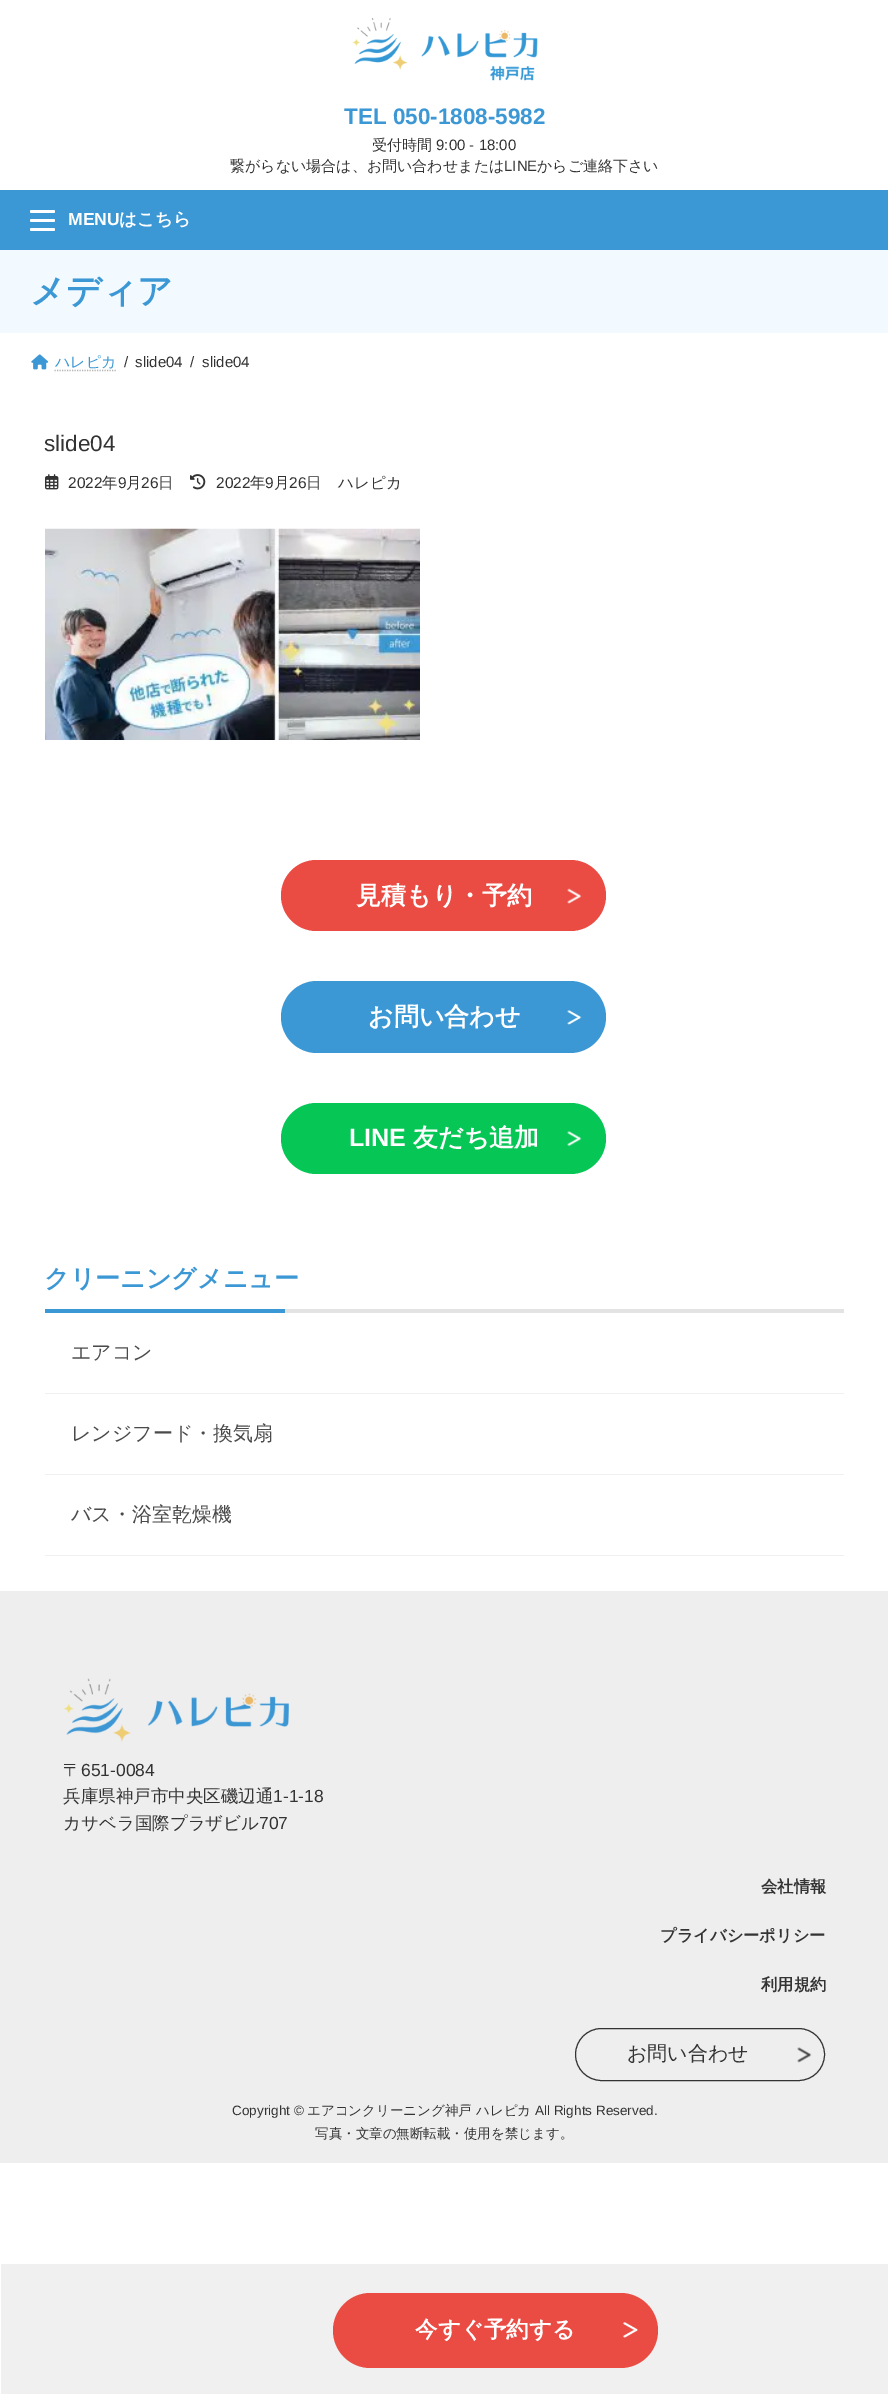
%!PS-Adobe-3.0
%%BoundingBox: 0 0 888 2394
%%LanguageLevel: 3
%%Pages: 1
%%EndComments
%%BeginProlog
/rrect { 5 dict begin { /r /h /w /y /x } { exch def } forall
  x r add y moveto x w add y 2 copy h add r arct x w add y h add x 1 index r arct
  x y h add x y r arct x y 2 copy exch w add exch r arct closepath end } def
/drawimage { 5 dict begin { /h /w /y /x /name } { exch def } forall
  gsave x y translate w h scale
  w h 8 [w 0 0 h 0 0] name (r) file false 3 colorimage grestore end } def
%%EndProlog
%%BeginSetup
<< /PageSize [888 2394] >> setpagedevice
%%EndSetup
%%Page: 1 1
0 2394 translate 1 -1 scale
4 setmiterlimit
1 setgray
0 0 888 2394 rectfill
(images/1.raw) 352 17 186 64 drawimage
0.235 0.596 0.835 setrgbcolor
0 190 888 60 rectfill
1 setgray
30 219 25 3 1.5 rrect fill
30 210 25 3 1.5 rrect fill
30 228 25 3 1.5 rrect fill
0.953 0.98 1 setrgbcolor
0 250 888 83 rectfill
(images/2.raw) 31 354 18 16 drawimage
0.702 setgray
1.2 setlinewidth
[1.25 1.25] 0 setdash
newpath 54.5 370.5 moveto 116 370.5 lineto stroke
(images/3.raw) 45 474 14 16 drawimage
(images/4.raw) 190 474 16 16 drawimage
(images/5.raw) 45 528 375 212 drawimage
0.918 0.298 0.267 setrgbcolor
281 860 325 71 35.5 rrect fill
(images/6.raw) 567 888 15 16 drawimage
0.235 0.596 0.835 setrgbcolor
281 981 325 72 36 rrect fill
(images/7.raw) 567 1010 15 15 drawimage
0.024 0.776 0.333 setrgbcolor
281 1103 325 71 35.5 rrect fill
(images/8.raw) 567 1131 15 16 drawimage
0.89 setgray
285 1309 559 4 rectfill
0.235 0.596 0.835 setrgbcolor
45 1309 240 4 rectfill
0.941 setgray
45 1393 799 1 rectfill
45 1474 799 1 rectfill
45 1555 799 1 rectfill
0.933 setgray
0 1591 888 572 rectfill
(images/9.raw) 63 1678 226 64 drawimage
0.2 setgray
1 setlinewidth
[] 0 setdash
575.5 2028.5 249 52 26 rrect stroke
(images/10.raw) 797 2047 15 16 drawimage
0.941 setgray
1 2264 887 130 rectfill
0.918 0.298 0.267 setrgbcolor
333 2293 325 75 37.5 rrect fill
(images/11.raw) 623 2322 15 16 drawimage
/LiberationSans-Bold [22.5 0 0 -22.5 0 0] selectfont
0.235 0.596 0.835 setrgbcolor
344 124 moveto (TEL 050-1808-5982) show
/WenQuanYiZenHei-Medium [15 0 0 -15 0 0] selectfont
0.2 setgray
372 150 moveto (受付時間) show
/LiberationSans-Regular [15 0 0 -15 0 0] selectfont
436 150 moveto (9:00 - 18:00) show
/WenQuanYiZenHei-Medium [15 0 0 -15 0 0] selectfont
230 171 moveto (繋がらない場合は、お問い合わせまたは) show
/LiberationSans-Regular [15 0 0 -15 0 0] selectfont
504 171 moveto (LINE) show
/WenQuanYiZenHei-Medium [15 0 0 -15 0 0] selectfont
537 171 moveto (からご連絡下さい) show
/LiberationSans-Bold [17.5 0 0 -17.5 0 0] selectfont
1 setgray
68 225 moveto (MENU) show
/WenQuanYiZenHei-Bold [17.5 0 0 -17.5 0 0] selectfont
119 225 moveto (はこちら) show
/WenQuanYiZenHei-Bold [35 0 0 -35 0 0] selectfont
0.235 0.596 0.835 setrgbcolor
30 303 moveto (メディア) show
/WenQuanYiZenHei-Medium [15 0 0 -15 0 0] selectfont
55 367 moveto (ハレピカ) show
/LiberationSans-Regular [15 0 0 -15 0 0] selectfont
0.2 setgray
124 367 moveto (/) show
135 367 moveto (slide04) show
190 367 moveto (/) show
202 367 moveto (slide04) show
/LiberationSans-Regular [22.5 0 0 -22.5 0 0] selectfont
44 451 moveto (slide04) show
/LiberationSans-Regular [15.5 0 0 -15.5 0 0] selectfont
68 488 moveto (2022) show
/WenQuanYiZenHei-Medium [15.5 0 0 -15.5 0 0] selectfont
102 488 moveto (年) show
/LiberationSans-Regular [15.5 0 0 -15.5 0 0] selectfont
118 488 moveto (9) show
/WenQuanYiZenHei-Medium [15.5 0 0 -15.5 0 0] selectfont
126 488 moveto (月) show
/LiberationSans-Regular [15.5 0 0 -15.5 0 0] selectfont
141 488 moveto (26) show
/WenQuanYiZenHei-Medium [15.5 0 0 -15.5 0 0] selectfont
158 488 moveto (日) show
/LiberationSans-Regular [15.5 0 0 -15.5 0 0] selectfont
216 488 moveto (2022) show
/WenQuanYiZenHei-Medium [15.5 0 0 -15.5 0 0] selectfont
250 488 moveto (年) show
/LiberationSans-Regular [15.5 0 0 -15.5 0 0] selectfont
265 488 moveto (9) show
/WenQuanYiZenHei-Medium [15.5 0 0 -15.5 0 0] selectfont
274 488 moveto (月) show
/LiberationSans-Regular [15.5 0 0 -15.5 0 0] selectfont
289 488 moveto (26) show
/WenQuanYiZenHei-Medium [15.5 0 0 -15.5 0 0] selectfont
306 488 moveto (日) show
338 488 moveto (ハレピカ) show
/WenQuanYiZenHei-Bold [25 0 0 -25 0 0] selectfont
1 setgray
356 904 moveto (見積もり・予約) show
368 1025 moveto (お問い合わせ) show
/LiberationSans-Bold [25 0 0 -25 0 0] selectfont
349 1146 moveto (LINE) show
/WenQuanYiZenHei-Bold [25 0 0 -25 0 0] selectfont
413 1146 moveto (友だち追加) show
0.235 0.596 0.835 setrgbcolor
44 1287 moveto (クリーニングメニュー) show
/WenQuanYiZenHei-Medium [20 0 0 -20 0 0] selectfont
0.29 setgray
71 1359 moveto (エアコン) show
71 1440 moveto (レンジフード・換気扇) show
71 1521 moveto (バス・浴室乾燥機) show
/WenQuanYiZenHei-Medium [17.5 0 0 -17.5 0 0] selectfont
0.2 setgray
63 1776 moveto (〒) show
/LiberationSans-Regular [17.5 0 0 -17.5 0 0] selectfont
81 1776 moveto (651-0084) show
/WenQuanYiZenHei-Medium [17.5 0 0 -17.5 0 0] selectfont
63 1802 moveto (兵庫県神戸市中央区磯辺通) show
/LiberationSans-Regular [17.5 0 0 -17.5 0 0] selectfont
273 1802 moveto (1-1-18) show
/WenQuanYiZenHei-Medium [17.5 0 0 -17.5 0 0] selectfont
63 1829 moveto (カサベラ国際プラザビル) show
/LiberationSans-Regular [17.5 0 0 -17.5 0 0] selectfont
259 1829 moveto (707) show
/WenQuanYiZenHei-Bold [16.25 0 0 -16.25 0 0] selectfont
761 1892 moveto (会社情報) show
660 1941 moveto (プライバシーポリシー) show
761 1990 moveto (利用規約) show
/WenQuanYiZenHei-Medium [20 0 0 -20 0 0] selectfont
627 2060 moveto (お問い合わせ) show
/LiberationSans-Regular [13.5 0 0 -13.5 0 0] selectfont
232 2115 moveto (Copyright ©) show
/WenQuanYiZenHei-Medium [13.5 0 0 -13.5 0 0] selectfont
307 2115 moveto (エアコンクリーニング神戸 ハレピカ) show
/LiberationSans-Regular [13.5 0 0 -13.5 0 0] selectfont
535 2115 moveto (All Rights Reserved.) show
/WenQuanYiZenHei-Medium [13.5 0 0 -13.5 0 0] selectfont
315 2138 moveto (写真・文章の無断転載・使用を禁じます。) show
/WenQuanYiZenHei-Bold [22.5 0 0 -22.5 0 0] selectfont
1 setgray
415 2337 moveto (今すぐ予約する) show
showpage
%%EOF
